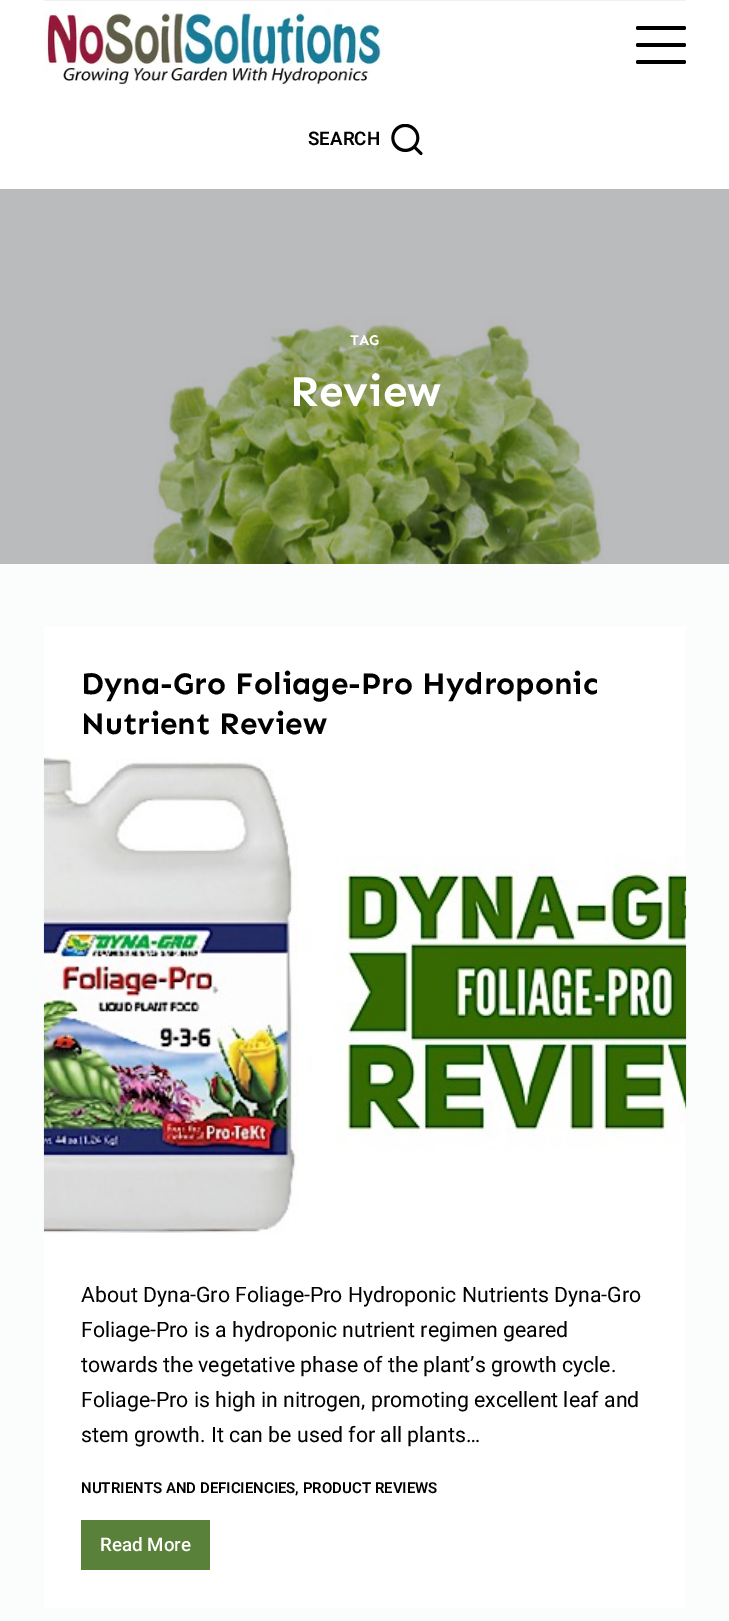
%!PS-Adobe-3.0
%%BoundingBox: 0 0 729 1621
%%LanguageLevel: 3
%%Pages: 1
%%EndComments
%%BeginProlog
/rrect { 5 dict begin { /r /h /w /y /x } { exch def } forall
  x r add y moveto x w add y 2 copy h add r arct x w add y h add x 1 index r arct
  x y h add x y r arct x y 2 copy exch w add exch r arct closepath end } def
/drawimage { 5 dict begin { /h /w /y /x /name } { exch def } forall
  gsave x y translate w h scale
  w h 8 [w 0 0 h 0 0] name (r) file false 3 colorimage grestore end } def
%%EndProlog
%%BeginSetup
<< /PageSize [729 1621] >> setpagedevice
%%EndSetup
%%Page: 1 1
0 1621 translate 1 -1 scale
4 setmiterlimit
0.984 0.988 0.988 setrgbcolor
0 0 729 1621 rectfill
1 setgray
0 0 729 189 rectfill
0.941 0.945 0.953 setrgbcolor
44 0 642 1 rectfill
(images/1.raw) 44 9 340 76 drawimage
0 setgray
636 26 50 4 2 rrect fill
636 43 50 4 2 rrect fill
636 60 50 4 2 rrect fill
(images/2.raw) 391 124 32 31 drawimage
(images/3.raw) 0 189 729 375 drawimage
1 setgray
44 626 642 982 rectfill
(images/4.raw) 43 757 644 478 drawimage
0.353 0.506 0.224 setrgbcolor
81 1520 129 50 rectfill
/Roboto-SemiBold [18.75 0 0 -18.75 0 0] selectfont
0 setgray
308 145 moveto (SEARCH) show
/Sen-Bold [15 0 0 -15 0 0] selectfont
1 setgray
350 345 moveto (TAG) show
/Sen-Bold [44 0 0 -44 0 0] selectfont
290 406 moveto (Review) show
/Sen-Bold [31.25 0 0 -31.25 0 0] selectfont
0 setgray
81 694 moveto (Dyna-Gro Foliage-Pro Hydroponic) show
81 734 moveto (Nutrient Review) show
/Roboto-Regular [21.25 0 0 -21.25 0 0] selectfont
81 1302 moveto (About Dyna-Gro Foliage-Pro Hydroponic Nutrients Dyna-Gro) show
81 1337 moveto (Foliage-Pro is a hydroponic nutrient regimen geared) show
81 1372 moveto (towards the vegetative phase of the plant’s growth cycle.) show
81 1407 moveto (Foliage-Pro is high in nitrogen, promoting excellent leaf and) show
81 1442 moveto (stem growth. It can be used for all plants…) show
/Roboto-SemiBold [15 0 0 -15 0 0] selectfont
81 1493 moveto (NUTRIENTS AND DEFICIENCIES, PRODUCT REVIEWS) show
/Roboto-Medium [18.75 0 0 -18.75 0 0] selectfont
1 setgray
100 1551 moveto (Read More) show
showpage
%%EOF
